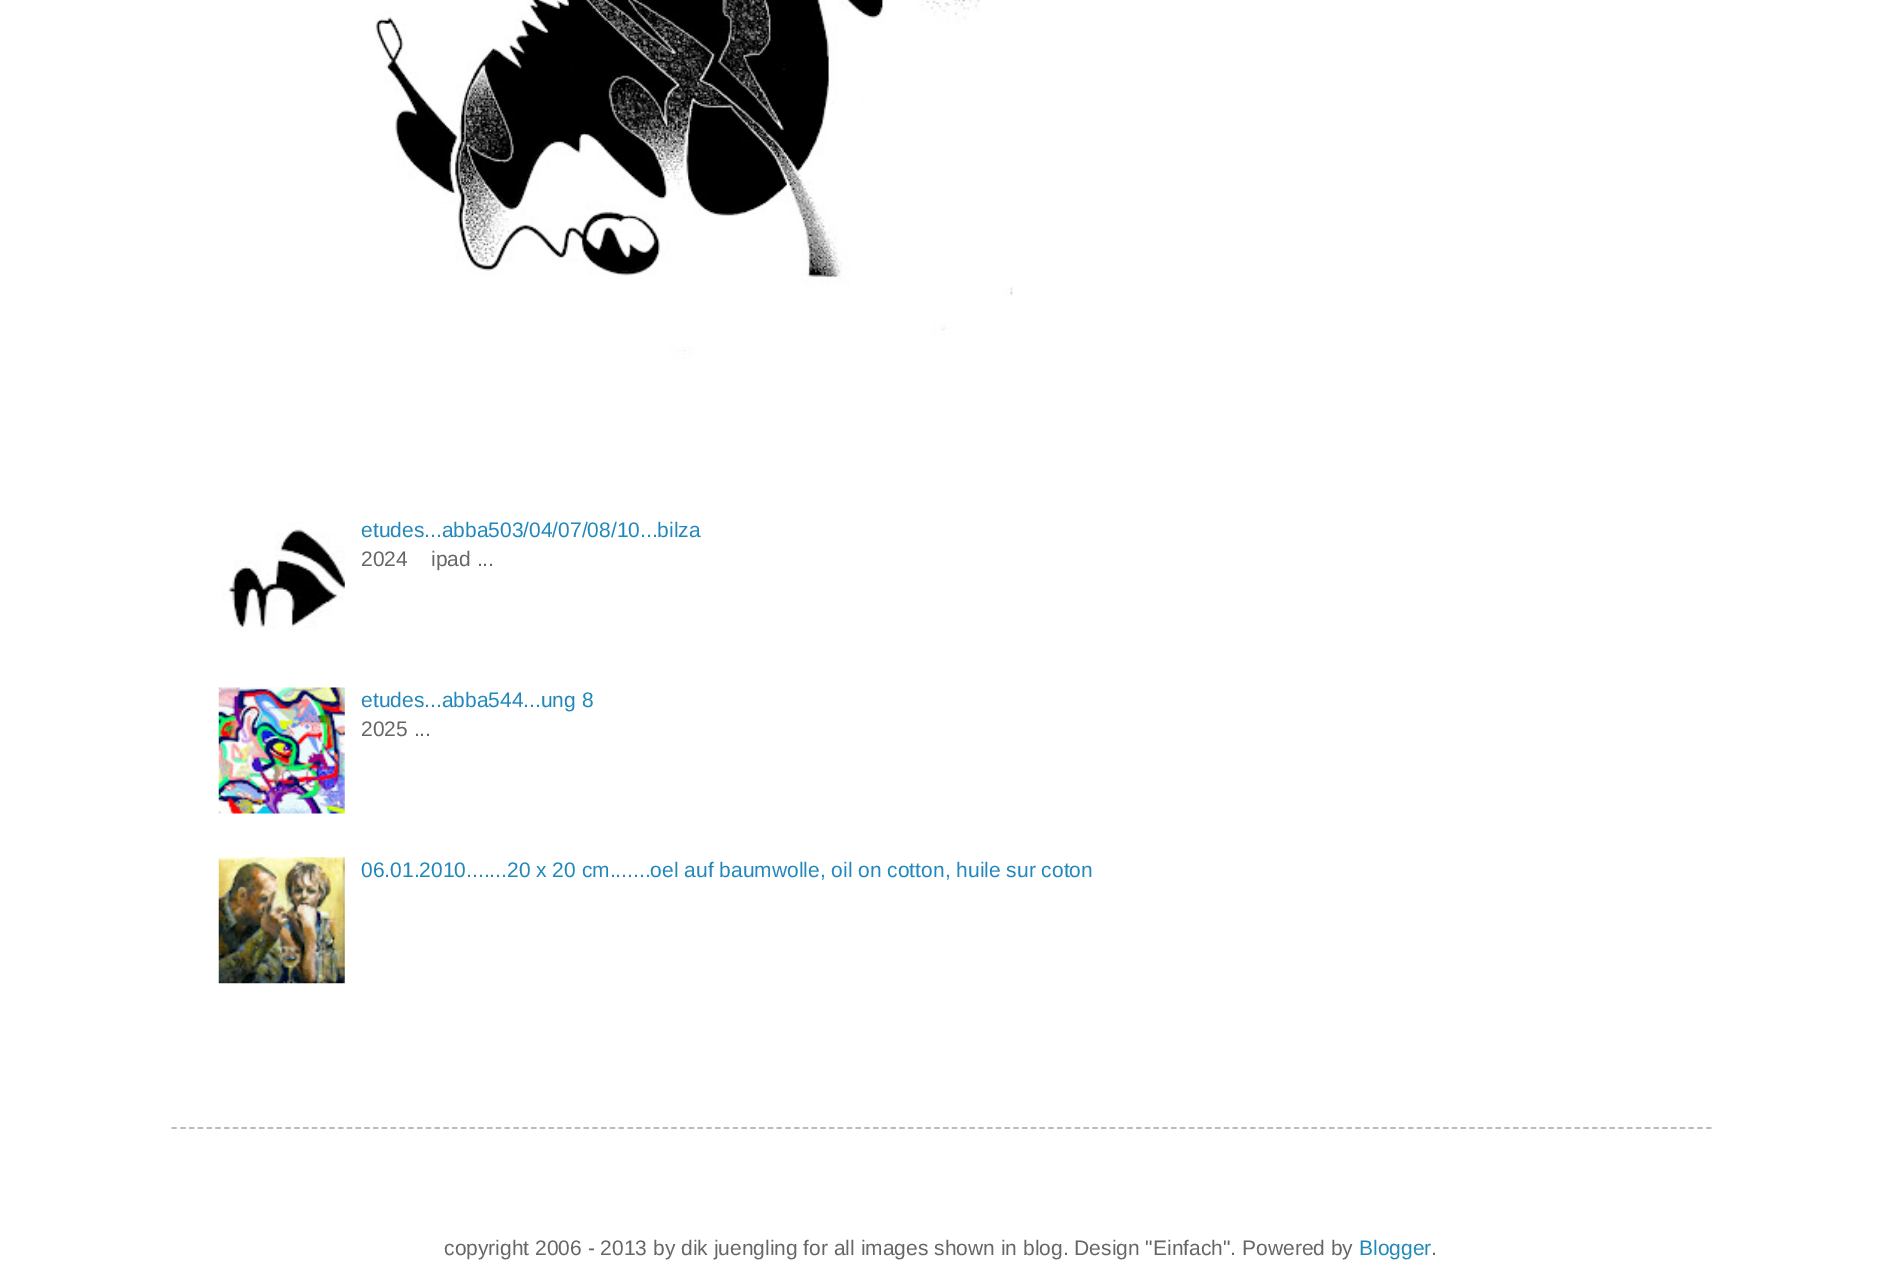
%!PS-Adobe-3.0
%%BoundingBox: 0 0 1881 1267
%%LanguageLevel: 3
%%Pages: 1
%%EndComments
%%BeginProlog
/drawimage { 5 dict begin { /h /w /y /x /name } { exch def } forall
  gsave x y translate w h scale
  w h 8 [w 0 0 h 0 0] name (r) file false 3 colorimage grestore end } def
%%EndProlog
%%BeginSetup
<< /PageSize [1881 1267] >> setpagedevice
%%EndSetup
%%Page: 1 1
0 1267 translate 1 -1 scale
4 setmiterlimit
1 setgray
0 0 1881 1267 rectfill
(images/1.raw) 375 0 638 359 drawimage
(images/2.raw) 221 522 124 108 drawimage
(images/3.raw) 218 687 127 127 drawimage
(images/4.raw) 218 857 127 127 drawimage
0.733 setgray
1.8 setlinewidth
[5.25 3.52] 0 setdash
newpath 171.5 1128 moveto 1711.5 1128 lineto stroke
/LiberationSans-Regular [21 0 0 -21 0 0] selectfont
0.133 0.533 0.733 setrgbcolor
361 537 moveto (etudes...abba503/04/07/08/10...bilza) show
0.4 setgray
361 566 moveto (2024    ipad ...) show
0.133 0.533 0.733 setrgbcolor
361 707 moveto (etudes...abba544...ung 8) show
0.4 setgray
361 736 moveto (2025 ...) show
0.133 0.533 0.733 setrgbcolor
361 877 moveto (06.01.2010.......20 x 20 cm.......oel auf baumwolle, oil on cotton, huile sur coton) show
0.4 setgray
444 1255 moveto (copyright 2006 - 2013 by dik juengling for all images shown in blog. Design "Einfach". Powered by) show
0.133 0.533 0.733 setrgbcolor
1359 1255 moveto (Blogger) show
0.4 setgray
1431 1255 moveto (.) show
showpage
%%EOF
